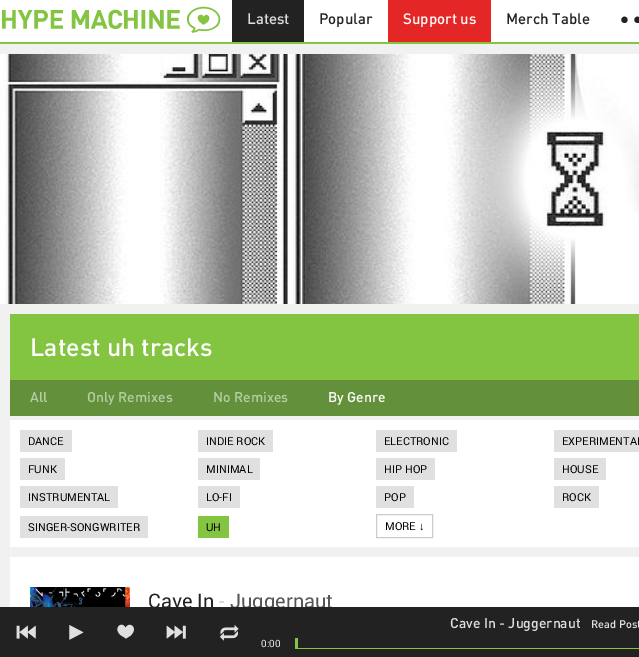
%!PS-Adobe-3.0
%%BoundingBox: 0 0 639 657
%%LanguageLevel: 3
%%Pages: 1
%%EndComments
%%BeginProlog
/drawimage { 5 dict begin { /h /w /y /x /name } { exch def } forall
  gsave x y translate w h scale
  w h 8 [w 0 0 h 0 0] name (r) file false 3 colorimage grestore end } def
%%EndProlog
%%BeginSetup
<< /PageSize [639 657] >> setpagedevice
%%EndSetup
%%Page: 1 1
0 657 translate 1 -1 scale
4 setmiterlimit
0.945 setgray
0 0 639 657 rectfill
1 setgray
0 0 639 42 rectfill
0.514 0.769 0.255 setrgbcolor
0 42 639 2 rectfill
0.133 setgray
232 0 72 42 rectfill
0.894 0.149 0.149 setrgbcolor
388 0 103 42 rectfill
(images/1.raw) 0 54 639 250 drawimage
0.514 0.769 0.255 setrgbcolor
10 314 629 66 rectfill
0.388 0.565 0.227 setrgbcolor
10 380 629 36 rectfill
1 setgray
10 420 629 127 rectfill
0.878 setgray
20 430 52 22 rectfill
198 430 75 22 rectfill
376 430 81 22 rectfill
554 430 85 22 rectfill
20 458 45 22 rectfill
198 458 62 22 rectfill
376 458 59 22 rectfill
554 458 52 22 rectfill
20 486 98 22 rectfill
198 486 42 22 rectfill
376 486 38 22 rectfill
554 486 45 22 rectfill
20 516 128 22 rectfill
0.514 0.769 0.255 setrgbcolor
198 516 31 22 rectfill
0.8 setgray
376.5 514.5 56 23 rectstroke
1 setgray
10 557 629 50 rectfill
(images/2.raw) 30 587 100 20 drawimage
/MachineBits-Regular [38 0 0 -38 0 0] selectfont
0.514 0.769 0.255 setrgbcolor
0 28 moveto (1) show
/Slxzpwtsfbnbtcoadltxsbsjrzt-Medium [15 0 0 -15 0 0] selectfont
0.878 setgray
247 24 moveto (Latest) show
0.133 setgray
319 24 moveto (Popular) show
1 setgray
403 24 moveto (Support us) show
0.133 setgray
506 24 moveto (Merch Table) show
/LiberationSerif-Bold [15 0 0 -15 0 0] selectfont
620 24 moveto (● ●) show
/Slxzpwtsfbnbtcoadltxsbsjrzt-Medium [25 0 0 -25 0 0] selectfont
1 setgray
30 356 moveto (Latest uh tracks) show
/Slxzpwtsfbnbtcoadltxsbsjrzt-Medium [14 0 0 -14 0 0] selectfont
0.725 0.804 0.647 setrgbcolor
30 402 moveto (All) show
87 402 moveto (Only Remixes) show
213 402 moveto (No Remixes) show
1 setgray
328 402 moveto (By Genre) show
/Roboto-Regular [11 0 0 -11 0 0] selectfont
0 setgray
28 445 moveto (DANCE) show
206 445 moveto (INDIE ROCK) show
384 445 moveto (ELECTRONIC) show
562 445 moveto (EXPERIMENTAL) show
28 473 moveto (FUNK) show
206 473 moveto (MINIMAL) show
384 473 moveto (HIP HOP) show
562 473 moveto (HOUSE) show
28 501 moveto (INSTRUMENTAL) show
206 501 moveto (LO-FI) show
384 501 moveto (POP) show
562 501 moveto (ROCK) show
28 531 moveto (SINGER-SONGWRITER) show
206 531 moveto (UH) show
385 530 moveto (MORE) show
/LiberationSans-Regular [11 0 0 -11 0 0] selectfont
419 530 moveto (↓) show
/Roboto-Regular [20 0 0 -20 0 0] selectfont
0.133 setgray
148 608 moveto (Cave In) show
0.8 setgray
219 608 moveto (-) show
0.333 setgray
230 608 moveto (Juggernaut) show
0.133 setgray
0 607 639 50 rectfill
(images/3.raw) 16 625 20 14 drawimage
(images/4.raw) 69 625 15 15 drawimage
0.878 setgray
newpath 125.5 628 moveto 129 620.5 139.5 628 130 636 curveto 126 638.5 lineto 120.5 635 lineto 112.5 627.5 122.5 620.5 125.5 628 curveto closepath fill
(images/5.raw) 166 625 20 14 drawimage
(images/6.raw) 219 624 20 17 drawimage
/Slxzpwtsfbnbtcoadltxsbsjrzt-Medium [14 0 0 -14 0 0] selectfont
450 628 moveto (Cave In - Juggernaut) show
/Slxzpwtsfbnbtcoadltxsbsjrzt-Medium [11 0 0 -11 0 0] selectfont
591 628 moveto (Read Post) show
/Roboto-Regular [10 0 0 -10 0 0] selectfont
261 647 moveto (0:00) show
0.514 0.769 0.255 setrgbcolor
295 648 344 1 rectfill
295 638 3 10 rectfill
showpage
%%EOF
